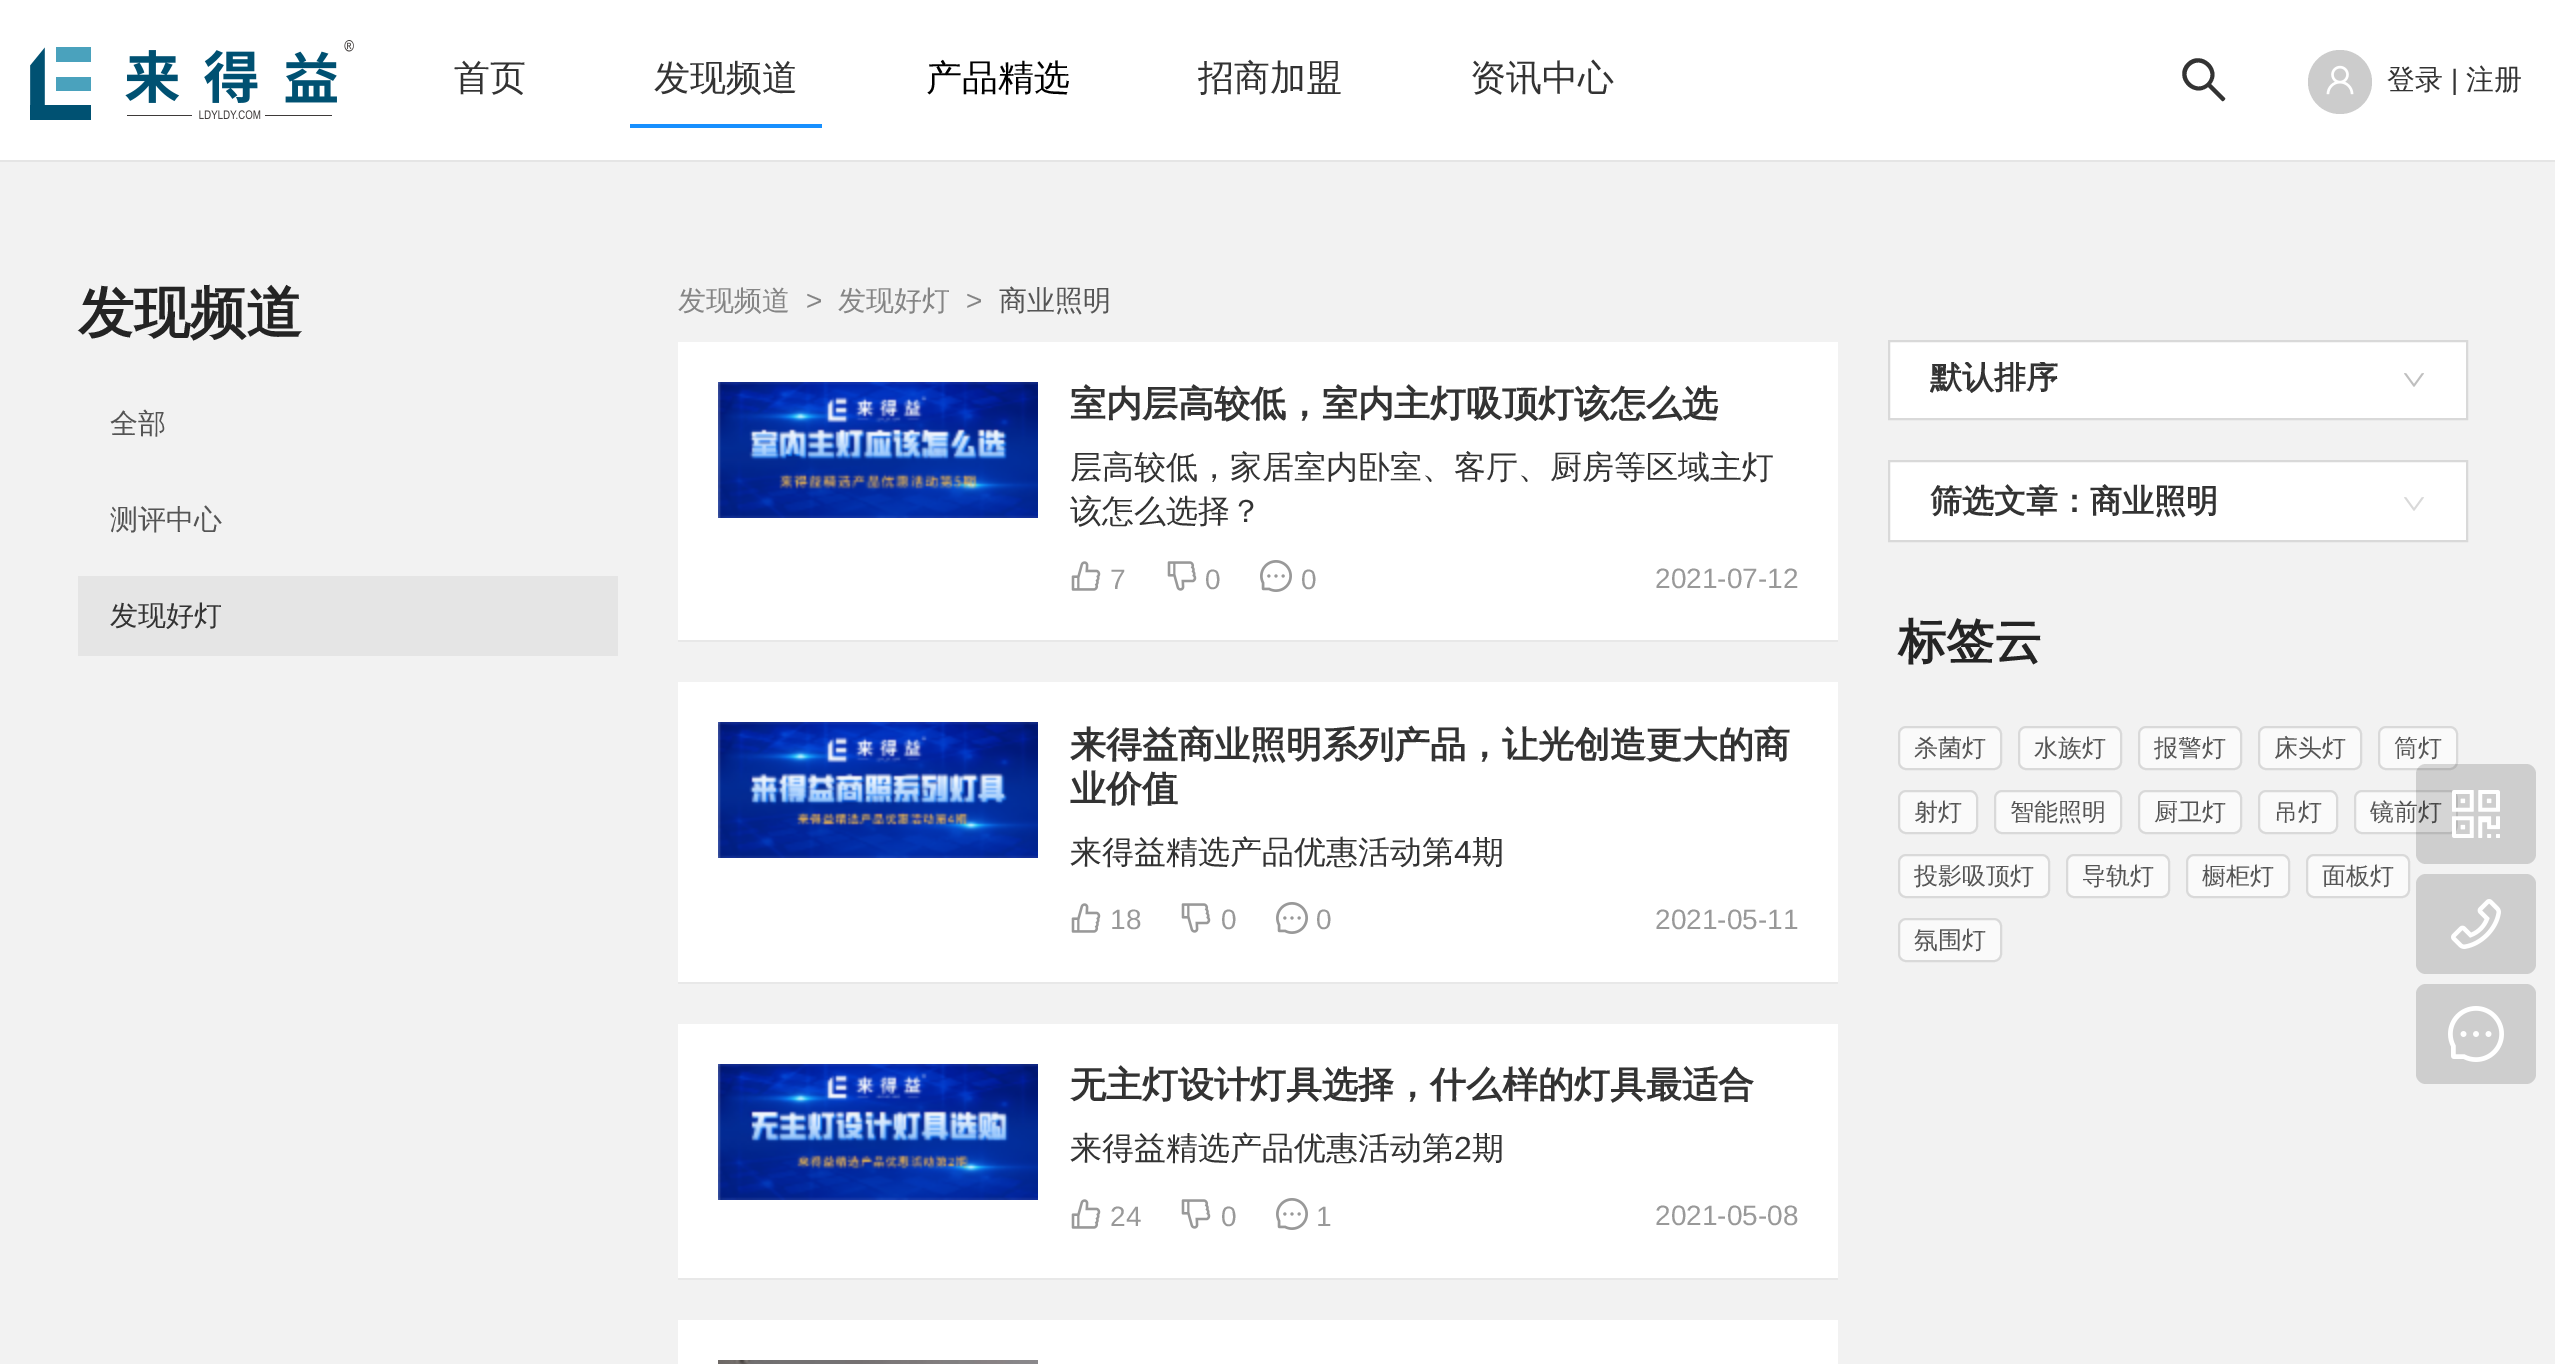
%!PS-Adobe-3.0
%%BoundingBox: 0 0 2555 1364
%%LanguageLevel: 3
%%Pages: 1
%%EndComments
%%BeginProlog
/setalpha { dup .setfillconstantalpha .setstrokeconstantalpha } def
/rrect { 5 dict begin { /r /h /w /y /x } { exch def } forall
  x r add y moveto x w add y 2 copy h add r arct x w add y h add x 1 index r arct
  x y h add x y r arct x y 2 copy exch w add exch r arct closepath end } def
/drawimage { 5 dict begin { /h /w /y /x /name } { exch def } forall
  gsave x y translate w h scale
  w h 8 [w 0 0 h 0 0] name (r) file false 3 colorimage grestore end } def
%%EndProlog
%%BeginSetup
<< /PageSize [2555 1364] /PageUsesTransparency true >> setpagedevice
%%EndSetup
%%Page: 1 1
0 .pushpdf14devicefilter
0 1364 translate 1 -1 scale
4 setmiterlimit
0.949 setgray
0 0 2555 1364 rectfill
1 setgray
0 0 2555 160 rectfill
0.898 setgray
0 160 2555 2 rectfill
(images/1.raw) 30 40 324 80 drawimage
0.094 0.565 1 setrgbcolor
630 124 192 4 rectfill
0.2 setgray
newpath 2225 98 moveto 2211 84 lineto 2223 69 2201 49 2187 63 curveto 2173 77 2193 99 2208 87 curveto 2222 101 lineto 2223 102 2226 99 2225 98 curveto closepath 2207 83 moveto 2196 94 2179 77 2190 66 curveto 2201 55 2218 72 2207 83 curveto closepath fill
0.8 setgray
newpath 2340 82 32 0 360 arc closepath fill
(images/2.raw) 2326 65 28 30 drawimage
0.898 setgray
78 576 540 80 rectfill
1 setgray
678 342 1160 298 rectfill
0.91 setgray
678 640 1160 2 rectfill
(images/3.raw) 718 382 320 136 drawimage
(images/4.raw) 1071 561 30 30 drawimage
(images/5.raw) 1167 561 30 30 drawimage
(images/6.raw) 1260 560 32 32 drawimage
1 setgray
678 682 1160 300 rectfill
0.91 setgray
678 982 1160 2 rectfill
(images/7.raw) 718 722 320 136 drawimage
(images/4.raw) 1071 903 30 30 drawimage
(images/5.raw) 1181 903 30 30 drawimage
(images/6.raw) 1276 902 32 32 drawimage
1 setgray
678 1024 1160 254 rectfill
0.91 setgray
678 1278 1160 2 rectfill
(images/8.raw) 718 1064 320 136 drawimage
(images/4.raw) 1071 1199 30 30 drawimage
(images/5.raw) 1181 1199 30 30 drawimage
(images/6.raw) 1276 1198 32 32 drawimage
1 setgray
678 1320 1160 44 rectfill
(images/9.raw) 718 1360 320 4 drawimage
newpath 1889 341 moveto 2467 341 lineto 2467 419 lineto 1889 419 lineto closepath gsave fill grestore
0.851 setgray
2 setlinewidth
stroke
(images/10.raw) 2404 373 20 14 drawimage
1 setgray
newpath 1889 461 moveto 2467 461 lineto 2467 541 lineto 1889 541 lineto closepath gsave fill grestore
0.851 setgray
stroke
(images/11.raw) 2404 497 20 14 drawimage
0.98 setgray
1899 727 102 42 7 rrect gsave fill grestore
0.851 setgray
stroke
0.98 setgray
2019 727 102 42 7 rrect gsave fill grestore
0.851 setgray
stroke
0.98 setgray
2139 727 102 42 7 rrect gsave fill grestore
0.851 setgray
stroke
0.98 setgray
2259 727 102 42 7 rrect gsave fill grestore
0.851 setgray
stroke
0.98 setgray
2379 727 78 42 7 rrect gsave fill grestore
0.851 setgray
stroke
0.98 setgray
1899 791 78 42 7 rrect gsave fill grestore
0.851 setgray
stroke
0.98 setgray
1995 791 126 42 7 rrect gsave fill grestore
0.851 setgray
stroke
0.98 setgray
2139 791 102 42 7 rrect gsave fill grestore
0.851 setgray
stroke
0.98 setgray
2259 791 78 42 7 rrect gsave fill grestore
0.851 setgray
stroke
0.98 setgray
2355 791 102 42 7 rrect gsave fill grestore
0.851 setgray
stroke
0.98 setgray
1899 855 150 42 7 rrect gsave fill grestore
0.851 setgray
stroke
0.98 setgray
2067 855 102 42 7 rrect gsave fill grestore
0.851 setgray
stroke
0.98 setgray
2187 855 102 42 7 rrect gsave fill grestore
0.851 setgray
stroke
0.98 setgray
2307 855 102 42 7 rrect gsave fill grestore
0.851 setgray
stroke
0.98 setgray
1899 919 102 42 7 rrect gsave fill grestore
0.851 setgray
stroke
0.808 setgray
2416 874 120 100 10 rrect fill
(images/13.raw) 2451 899 50 50 drawimage
2416 984 120 100 10 rrect fill
(images/14.raw) 2448 1006 56 56 drawimage
/WenQuanYiZenHei-Medium [36 0 0 -36 0 0] selectfont
0.2 setgray
454 90 moveto (首页) show
654 90 moveto (发现频道) show
0 setgray
926 90 moveto (产品精选) show
0.2 setgray
1198 90 moveto (招商加盟) show
1470 90 moveto (资讯中心) show
/WenQuanYiZenHei-Medium [28 0 0 -28 0 0] selectfont
2387 89 moveto (登录) show
/LiberationSans-Regular [28 0 0 -28 0 0] selectfont
2451 89 moveto (|) show
/WenQuanYiZenHei-Medium [28 0 0 -28 0 0] selectfont
2466 89 moveto (注册) show
/WenQuanYiZenHei-Bold [56 0 0 -56 0 0] selectfont
0.141 setgray
78 332 moveto (发现频道) show
/WenQuanYiZenHei-Medium [28 0 0 -28 0 0] selectfont
0.333 setgray
110 433 moveto (全部) show
110 529 moveto (测评中心) show
0.2 setgray
110 625 moveto (发现好灯) show
0.522 setgray
678 310 moveto (发现频道) show
/LiberationSans-Regular [28 0 0 -28 0 0] selectfont
806 310 moveto (>) show
/WenQuanYiZenHei-Medium [28 0 0 -28 0 0] selectfont
838 310 moveto (发现好灯) show
/LiberationSans-Regular [28 0 0 -28 0 0] selectfont
966 310 moveto (>) show
/WenQuanYiZenHei-Medium [28 0 0 -28 0 0] selectfont
0.333 setgray
999 310 moveto (商业照明) show
/WenQuanYiZenHei-Bold [36 0 0 -36 0 0] selectfont
0.2 setgray
1070 416 moveto (室内层高较低，室内主灯吸顶灯该怎么选) show
/WenQuanYiZenHei-Medium [32 0 0 -32 0 0] selectfont
1070 478 moveto (层高较低，家居室内卧室、客厅、厨房等区域主灯) show
1070 522 moveto (该怎么选择？) show
/LiberationSans-Regular [28 0 0 -28 0 0] selectfont
0.6 setgray
1110 589 moveto (7) show
1205 589 moveto (0) show
1301 589 moveto (0) show
1655 588 moveto (2021-07-12) show
/WenQuanYiZenHei-Bold [36 0 0 -36 0 0] selectfont
0.2 setgray
1070 757 moveto (来得益商业照明系列产品，让光创造更大的商) show
1070 801 moveto (业价值) show
/WenQuanYiZenHei-Medium [32 0 0 -32 0 0] selectfont
1070 863 moveto (来得益精选产品优惠活动第) show
/LiberationSans-Regular [32 0 0 -32 0 0] selectfont
1454 863 moveto (4) show
/WenQuanYiZenHei-Medium [32 0 0 -32 0 0] selectfont
1472 863 moveto (期) show
/LiberationSans-Regular [28 0 0 -28 0 0] selectfont
0.6 setgray
1110 929 moveto (18) show
1221 929 moveto (0) show
1316 929 moveto (0) show
1655 929 moveto (2021-05-11) show
/WenQuanYiZenHei-Bold [36 0 0 -36 0 0] selectfont
0.2 setgray
1070 1097 moveto (无主灯设计灯具选择，什么样的灯具最适合) show
/WenQuanYiZenHei-Medium [32 0 0 -32 0 0] selectfont
1070 1159 moveto (来得益精选产品优惠活动第) show
/LiberationSans-Regular [32 0 0 -32 0 0] selectfont
1454 1159 moveto (2) show
/WenQuanYiZenHei-Medium [32 0 0 -32 0 0] selectfont
1472 1159 moveto (期) show
/LiberationSans-Regular [28 0 0 -28 0 0] selectfont
0.6 setgray
1110 1226 moveto (24) show
1221 1226 moveto (0) show
1316 1226 moveto (1) show
1655 1225 moveto (2021-05-08) show
gsave
1930 362 128 32 rectclip
/WenQuanYiZenHei-Bold [32 0 0 -32 0 0] selectfont
0.2 setgray
1930 388 moveto (默认排序) show
grestore
/WenQuanYiZenHei-Bold [32 0 0 -32 0 0] selectfont
0.2 setgray
1930 512 moveto (筛选文章：商业照明) show
/WenQuanYiZenHei-Bold [48 0 0 -48 0 0] selectfont
0.141 setgray
1898 658 moveto (标签云) show
/WenQuanYiZenHei-Medium [24 0 0 -24 0 0] selectfont
0.333 setgray
1914 756 moveto (杀菌灯) show
2034 756 moveto (水族灯) show
2154 756 moveto (报警灯) show
2274 756 moveto (床头灯) show
2394 756 moveto (筒灯) show
1914 820 moveto (射灯) show
2010 820 moveto (智能照明) show
2154 820 moveto (厨卫灯) show
2274 820 moveto (吊灯) show
2370 820 moveto (镜前灯) show
1914 884 moveto (投影吸顶灯) show
2082 884 moveto (导轨灯) show
2202 884 moveto (橱柜灯) show
2322 884 moveto (面板灯) show
1914 948 moveto (氛围灯) show
0.15 setalpha
0 setgray
2416 764 120 100 10 rrect fill
1 setalpha
(images/12.raw) 2452 790 48 48 drawimage
.poppdf14devicefilter showpage
%%EOF
